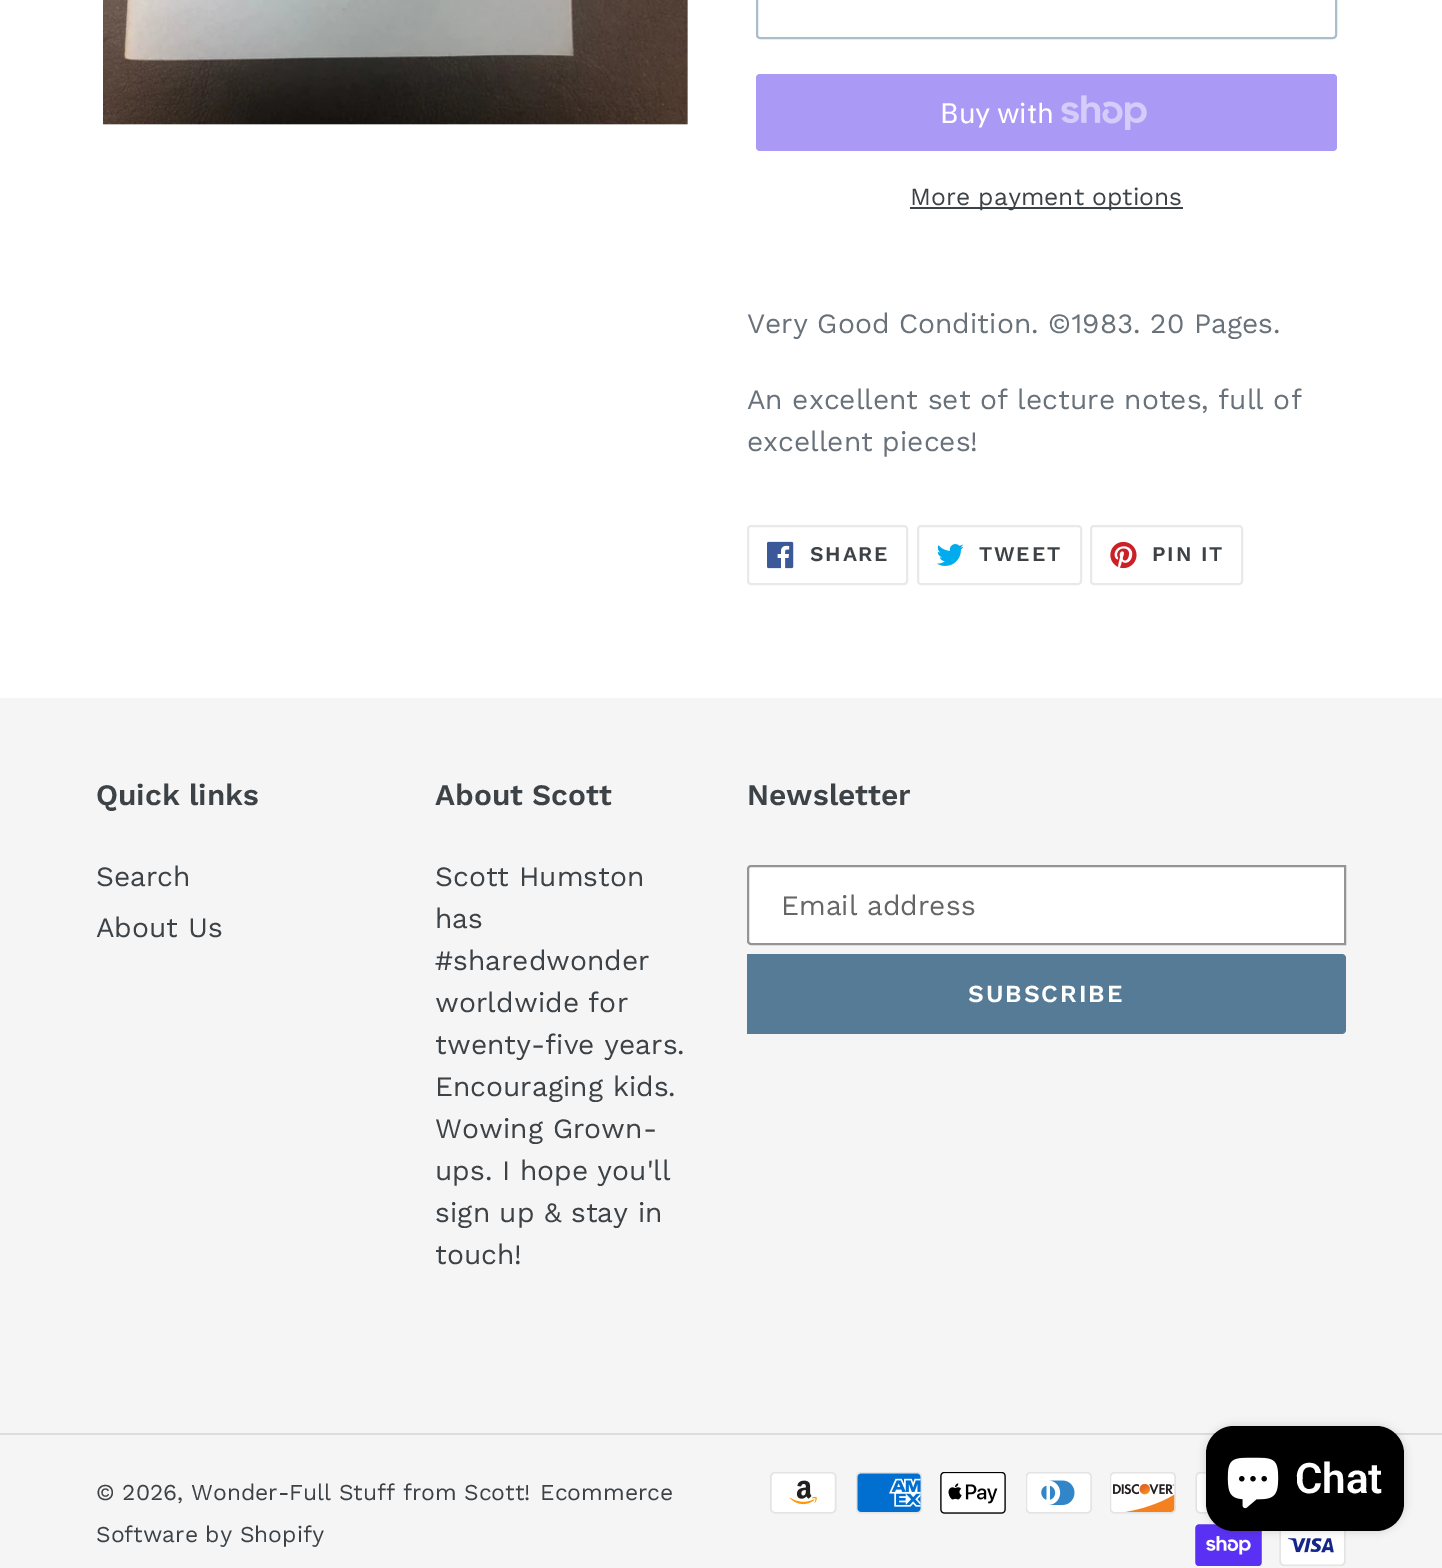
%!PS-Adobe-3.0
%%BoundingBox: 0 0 1442 1568
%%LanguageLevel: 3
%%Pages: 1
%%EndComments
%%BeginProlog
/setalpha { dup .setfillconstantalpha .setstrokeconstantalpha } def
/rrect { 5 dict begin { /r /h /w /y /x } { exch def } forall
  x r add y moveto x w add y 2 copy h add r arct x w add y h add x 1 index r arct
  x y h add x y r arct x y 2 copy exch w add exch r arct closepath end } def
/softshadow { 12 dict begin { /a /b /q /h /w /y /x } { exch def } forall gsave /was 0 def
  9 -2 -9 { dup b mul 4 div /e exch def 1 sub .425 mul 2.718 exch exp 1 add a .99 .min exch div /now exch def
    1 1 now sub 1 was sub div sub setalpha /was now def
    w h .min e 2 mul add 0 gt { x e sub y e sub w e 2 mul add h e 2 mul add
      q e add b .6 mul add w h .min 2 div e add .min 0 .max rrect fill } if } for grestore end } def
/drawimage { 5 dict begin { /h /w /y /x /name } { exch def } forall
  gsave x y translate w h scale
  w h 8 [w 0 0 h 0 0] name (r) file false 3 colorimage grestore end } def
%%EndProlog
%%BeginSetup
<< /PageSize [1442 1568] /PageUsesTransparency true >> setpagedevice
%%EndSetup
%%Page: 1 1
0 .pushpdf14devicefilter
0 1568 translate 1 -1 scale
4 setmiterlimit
1 setgray
0 0 1442 1568 rectfill
(images/1.raw) 103 0 585 125 drawimage
0.667 0.741 0.796 setrgbcolor
2 setlinewidth
757 -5 579 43 3 rrect stroke
0.667 0.6 0.961 setrgbcolor
756 74 581 77 4 rrect fill
(images/2.raw) 1061 95 86 35 drawimage
0.239 0.259 0.275 setrgbcolor
910 207 273 2 rectfill
0.91 0.914 0.922 setrgbcolor
748 526 159 58 3 rrect stroke
(images/3.raw) 767 541 27 28 drawimage
918 526 163 58 3 rrect stroke
(images/4.raw) 936 544 28 22 drawimage
1091 526 151 58 3 rrect stroke
(images/5.raw) 1110 541 27 28 drawimage
0.961 setgray
0 698 1442 870 rectfill
1 setgray
newpath 751 866 moveto 1345 866 lineto 1345 944 lineto 751 944 lineto 749.5 944 748 942.5 748 941 curveto 748 869 lineto 748 867.5 749.5 866 751 866 curveto closepath gsave fill grestore
0.58 setgray
stroke
0.333 0.482 0.592 setrgbcolor
newpath 747 954 moveto 1342 954 lineto 1344 954 1346 956 1346 958 curveto 1346 1030 lineto 1346 1032 1344 1034 1342 1034 curveto 747 1034 lineto closepath fill
0.863 setgray
0 1433 1442 2 rectfill
(images/6.raw) 770 1472 67 42 drawimage
(images/7.raw) 856 1472 66 42 drawimage
(images/8.raw) 940 1472 66 42 drawimage
(images/9.raw) 1026 1472 66 42 drawimage
(images/10.raw) 1110 1472 66 42 drawimage
(images/11.raw) 1195 1472 14 42 drawimage
(images/12.raw) 1195 1524 67 42 drawimage
(images/13.raw) 1279 1531 67 35 drawimage
0 setgray
1206 1426 198 105 28 4.5 0.15 softshadow
1206 1426 198 105 28 rrect fill
(images/14.raw) 1227 1457 52 52 drawimage
/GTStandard-Regular [28 0 0 -28 0 0] selectfont
1 setgray
940 123 moveto (Buy with) show
/WorkSans-Regular [24.5 0 0 -24.5 0 0] selectfont
0.239 0.259 0.275 setrgbcolor
910 205 moveto (More payment options) show
/WorkSans-Regular [28 0 0 -28 0 0] selectfont
0.412 0.447 0.482 setrgbcolor
747 333 moveto (Very Good Condition. ©1983. 20 Pages.) show
747 409 moveto (An excellent set of lecture notes, full of) show
747 451 moveto (excellent pieces!) show
/WorkSans-SemiBold [21 0 0 -21 0 0] selectfont
0.239 0.259 0.275 setrgbcolor
810 561 moveto 1.75 0 (SHARE) ashow
979 561 moveto 1.75 0 (TWEET) ashow
1152 561 moveto 1.75 0 (PIN IT) ashow
/WorkSans-SemiBold [29.75 0 0 -29.75 0 0] selectfont
96 805 moveto (Quick links) show
/WorkSans-Regular [28 0 0 -28 0 0] selectfont
96 886 moveto (Search) show
96 937 moveto (About Us) show
/WorkSans-SemiBold [29.75 0 0 -29.75 0 0] selectfont
435 805 moveto (About Scott) show
/WorkSans-Regular [28 0 0 -28 0 0] selectfont
435 886 moveto (Scott Humston) show
435 928 moveto (has) show
435 970 moveto (#sharedwonder) show
435 1012 moveto (worldwide for) show
435 1054 moveto (twenty-five years.) show
435 1096 moveto (Encouraging kids.) show
435 1138 moveto (Wowing Grown-) show
435 1180 moveto (ups. I hope you'll) show
435 1222 moveto (sign up & stay in) show
435 1264 moveto (touch!) show
/WorkSans-SemiBold [29.75 0 0 -29.75 0 0] selectfont
747 805 moveto (Newsletter) show
/WorkSans-Regular [28 0 0 -28 0 0] selectfont
0.4 setgray
781 915 moveto (Email address) show
/WorkSans-SemiBold [24.5 0 0 -24.5 0 0] selectfont
1 setgray
968 1002 moveto 2 0 (SUBSCRIBE) ashow
/WorkSans-Regular [22.75 0 0 -22.75 0 0] selectfont
0.239 0.259 0.275 setrgbcolor
96 1500 moveto (© 2026, Wonder-Full Stuff from Scott!) show
540 1500 moveto (Ecommerce) show
96 1542 moveto (Software by Shopify) show
/Roboto-SemiBold [42 0 0 -42 0 0] selectfont
1 setgray
1295 1493 moveto (Chat) show
.poppdf14devicefilter showpage
%%EOF
